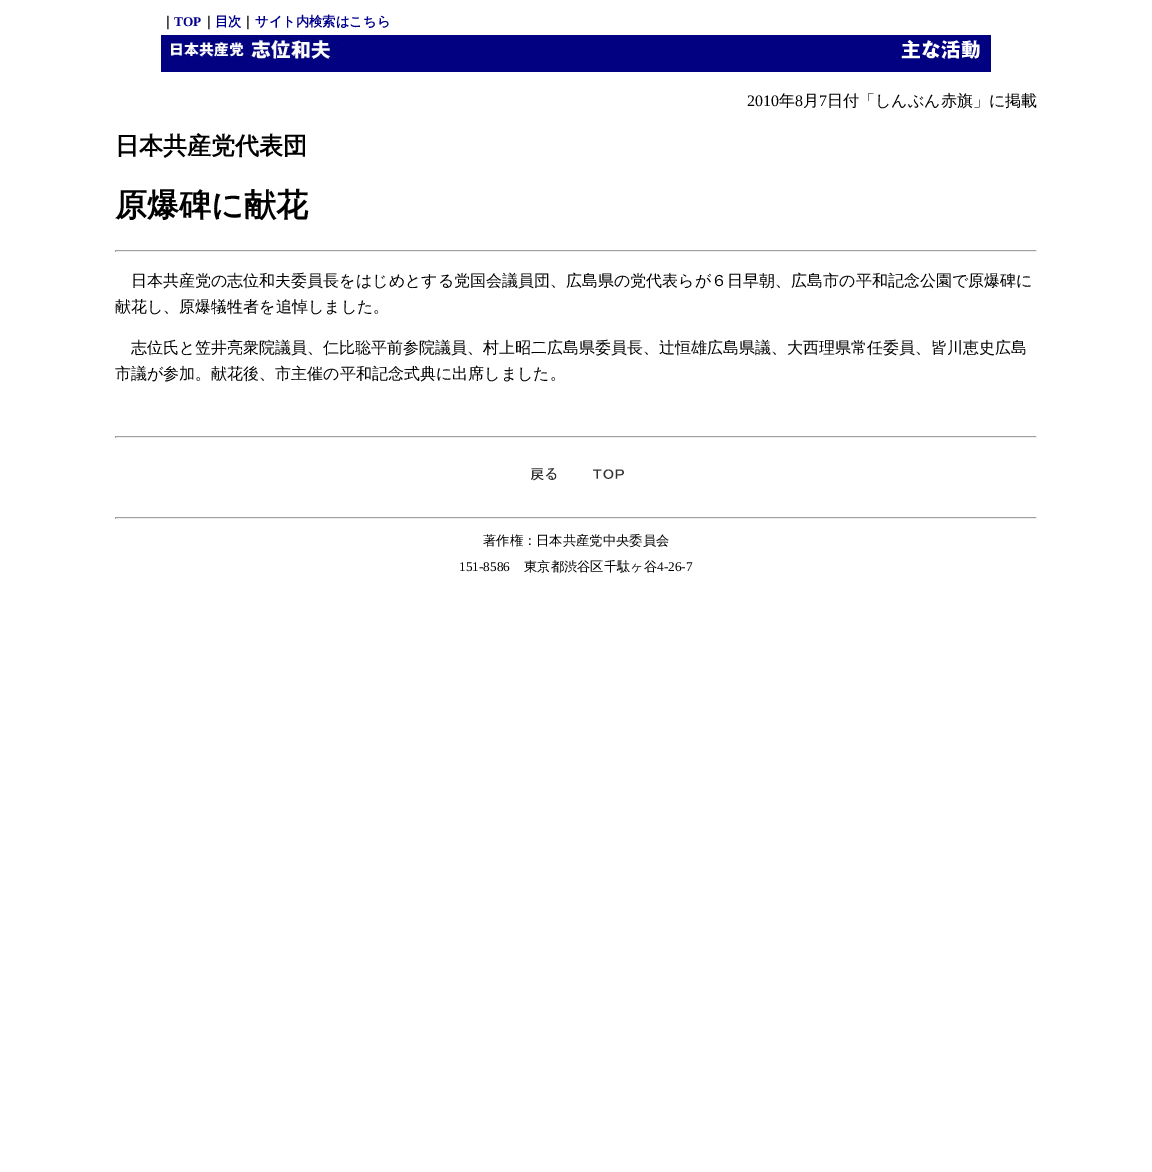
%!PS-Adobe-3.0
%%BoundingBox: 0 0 1152 1172
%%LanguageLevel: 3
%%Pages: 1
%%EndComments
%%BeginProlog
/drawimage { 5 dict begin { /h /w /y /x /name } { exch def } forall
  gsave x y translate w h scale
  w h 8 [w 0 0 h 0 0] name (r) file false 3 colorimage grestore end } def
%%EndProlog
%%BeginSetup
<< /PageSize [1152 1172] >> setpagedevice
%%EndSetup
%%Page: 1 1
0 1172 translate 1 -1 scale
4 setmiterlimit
1 setgray
0 0 1152 1172 rectfill
0.008 0.004 0.506 setrgbcolor
161 35 830 37 rectfill
(images/1.raw) 169 35 168 24 drawimage
(images/2.raw) 901 40 79 19 drawimage
0.624 setgray
115 250 922 1 rectfill
0.933 setgray
1036 250 1 2 rectfill
115 251 922 1 rectfill
0.624 setgray
115 250 1 2 rectfill
115 436 922 1 rectfill
0.933 setgray
1036 436 1 2 rectfill
115 437 922 1 rectfill
0.624 setgray
115 436 1 2 rectfill
(images/3.raw) 531 468 26 13 drawimage
(images/4.raw) 593 468 31 11 drawimage
115 517 922 1 rectfill
0.933 setgray
1036 517 1 2 rectfill
115 518 922 1 rectfill
0.624 setgray
115 517 1 2 rectfill
/WenQuanYiZenHei-Bold [13.3 0 0 -13.3 0 0] selectfont
0 setgray
161 26 moveto (｜) show
/LiberationSerif-Bold [13.3 0 0 -13.3 0 0] selectfont
0 0 0.545 setrgbcolor
174 26 moveto (TOP) show
/WenQuanYiZenHei-Bold [13.3 0 0 -13.3 0 0] selectfont
0 setgray
202 26 moveto (｜) show
0 0 0.545 setrgbcolor
215 26 moveto (目次) show
0 setgray
241 26 moveto (｜) show
0 0 0.545 setrgbcolor
255 26 moveto (サイト内検索はこちら) show
/LiberationSerif-Regular [16 0 0 -16 0 0] selectfont
0 setgray
747 106 moveto (2010) show
/WenQuanYiZenHei-Medium [16 0 0 -16 0 0] selectfont
779 106 moveto (年) show
/LiberationSerif-Regular [16 0 0 -16 0 0] selectfont
795 106 moveto (8) show
/WenQuanYiZenHei-Medium [16 0 0 -16 0 0] selectfont
803 106 moveto (月) show
/LiberationSerif-Regular [16 0 0 -16 0 0] selectfont
819 106 moveto (7) show
/WenQuanYiZenHei-Medium [16 0 0 -16 0 0] selectfont
827 106 moveto (日付「しんぶん赤旗」に掲載) show
/WenQuanYiZenHei-Bold [24 0 0 -24 0 0] selectfont
115 154 moveto (日本共産党代表団) show
/WenQuanYiZenHei-Bold [32 0 0 -32 0 0] selectfont
115 216 moveto (原爆碑に献花) show
/WenQuanYiZenHei-Medium [16 0 0 -16 0 0] selectfont
131 286 moveto (日本共産党の志位和夫委員長をはじめとする党国会議員団、広島県の党代表らが６日早朝、広島市の平和記念公園で原爆碑に) show
115 312 moveto (献花し、原爆犠牲者を追悼しました。) show
131 353 moveto (志位氏と笠井亮衆院議員、仁比聡平前参院議員、村上昭二広島県委員長、辻恒雄広島県議、大西理県常任委員、皆川恵史広島) show
115 379 moveto (市議が参加。献花後、市主催の平和記念式典に出席しました。) show
/WenQuanYiZenHei-Medium [13.3 0 0 -13.3 0 0] selectfont
483 545 moveto (著作権：日本共産党中央委員会) show
/LiberationSerif-Regular [13.3 0 0 -13.3 0 0] selectfont
459 571 moveto (151-8586) show
/WenQuanYiZenHei-Medium [13.3 0 0 -13.3 0 0] selectfont
524 571 moveto (東京都渋谷区千駄ヶ谷) show
/LiberationSerif-Regular [13.3 0 0 -13.3 0 0] selectfont
657 571 moveto (4-26-7) show
showpage
%%EOF
